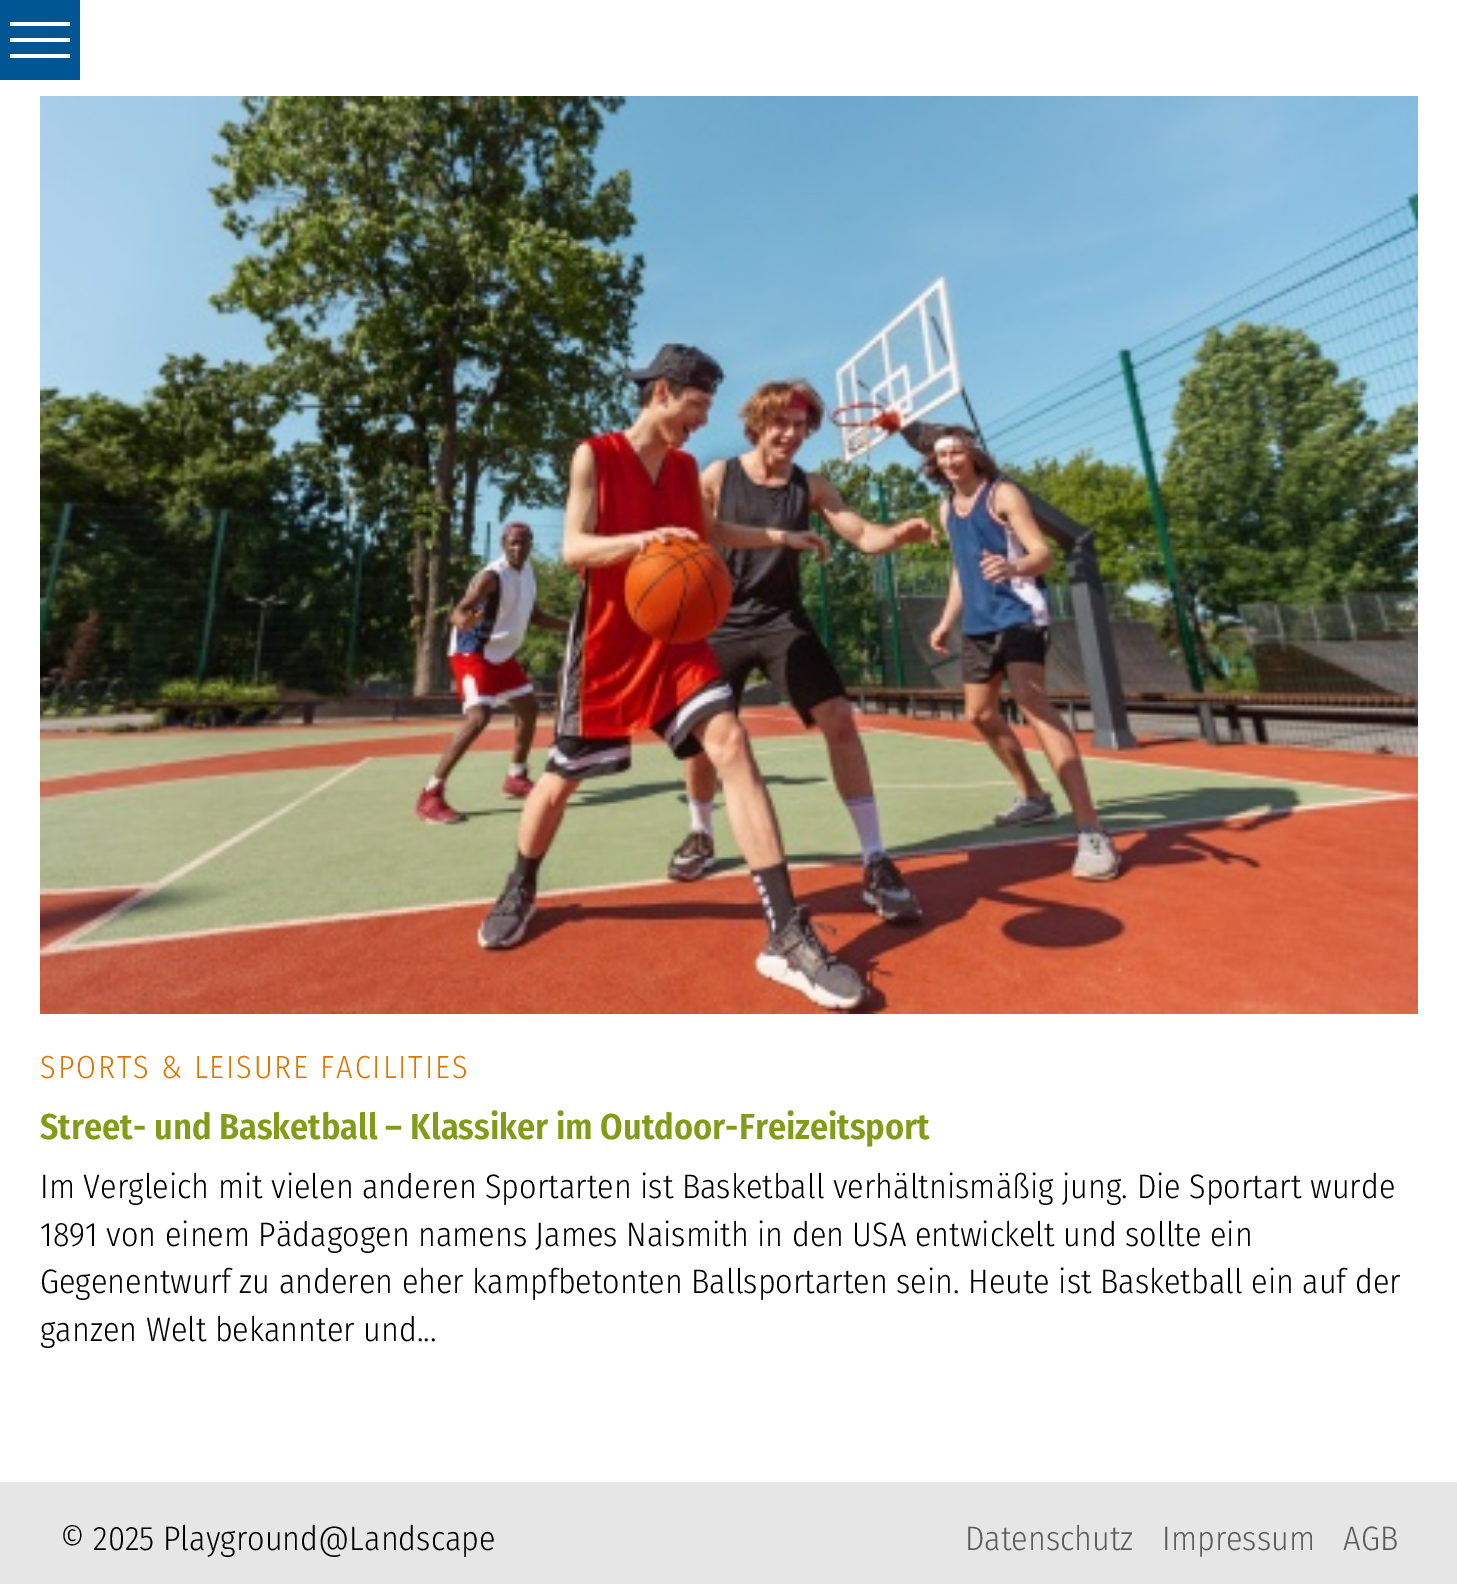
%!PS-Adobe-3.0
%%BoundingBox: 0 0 1457 1584
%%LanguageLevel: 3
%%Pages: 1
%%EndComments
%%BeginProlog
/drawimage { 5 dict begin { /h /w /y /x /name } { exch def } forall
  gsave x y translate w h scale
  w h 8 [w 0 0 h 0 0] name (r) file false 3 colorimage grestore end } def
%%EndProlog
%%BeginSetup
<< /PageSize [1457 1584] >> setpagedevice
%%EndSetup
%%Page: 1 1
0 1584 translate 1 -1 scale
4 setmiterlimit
1 setgray
0 0 1457 1584 rectfill
0 0.333 0.576 setrgbcolor
0 0 80 80 rectfill
1 setgray
10 22 60 4 rectfill
10 38 60 4 rectfill
10 54 60 4 rectfill
(images/1.raw) 40 96 1378 918 drawimage
0.902 setgray
0 1482 1457 102 rectfill
/FiraSansCondensed-Light [32 0 0 -32 0 0] selectfont
0.867 0.459 0 setrgbcolor
40 1078 moveto 2 0 (SPORTS & LEISURE FACILITIES) ashow
/FiraSansCondensed-SemiBold [36 0 0 -36 0 0] selectfont
0.506 0.612 0.098 setrgbcolor
40 1139 moveto (Street- und Basketball – Klassiker im Outdoor-Freizeitsport) show
/FiraSansCondensed-Light [34 0 0 -34 0 0] selectfont
0 setgray
40 1198 moveto (Im Vergleich mit vielen anderen Sportarten ist Basketball verhältnismäßig jung. Die Sportart wurde) show
40 1246 moveto (1891 von einem Pädagogen namens James Naismith in den USA entwickelt und sollte ein) show
40 1293 moveto (Gegenentwurf zu anderen eher kampfbetonten Ballsportarten sein. Heute ist Basketball ein auf der) show
40 1341 moveto (ganzen Welt bekannter und...) show
60 1550 moveto (© 2025 Playground@Landscape) show
0.361 setgray
965 1550 moveto (Datenschutz) show
1162 1550 moveto (Impressum) show
1343 1550 moveto (AGB) show
showpage
%%EOF
